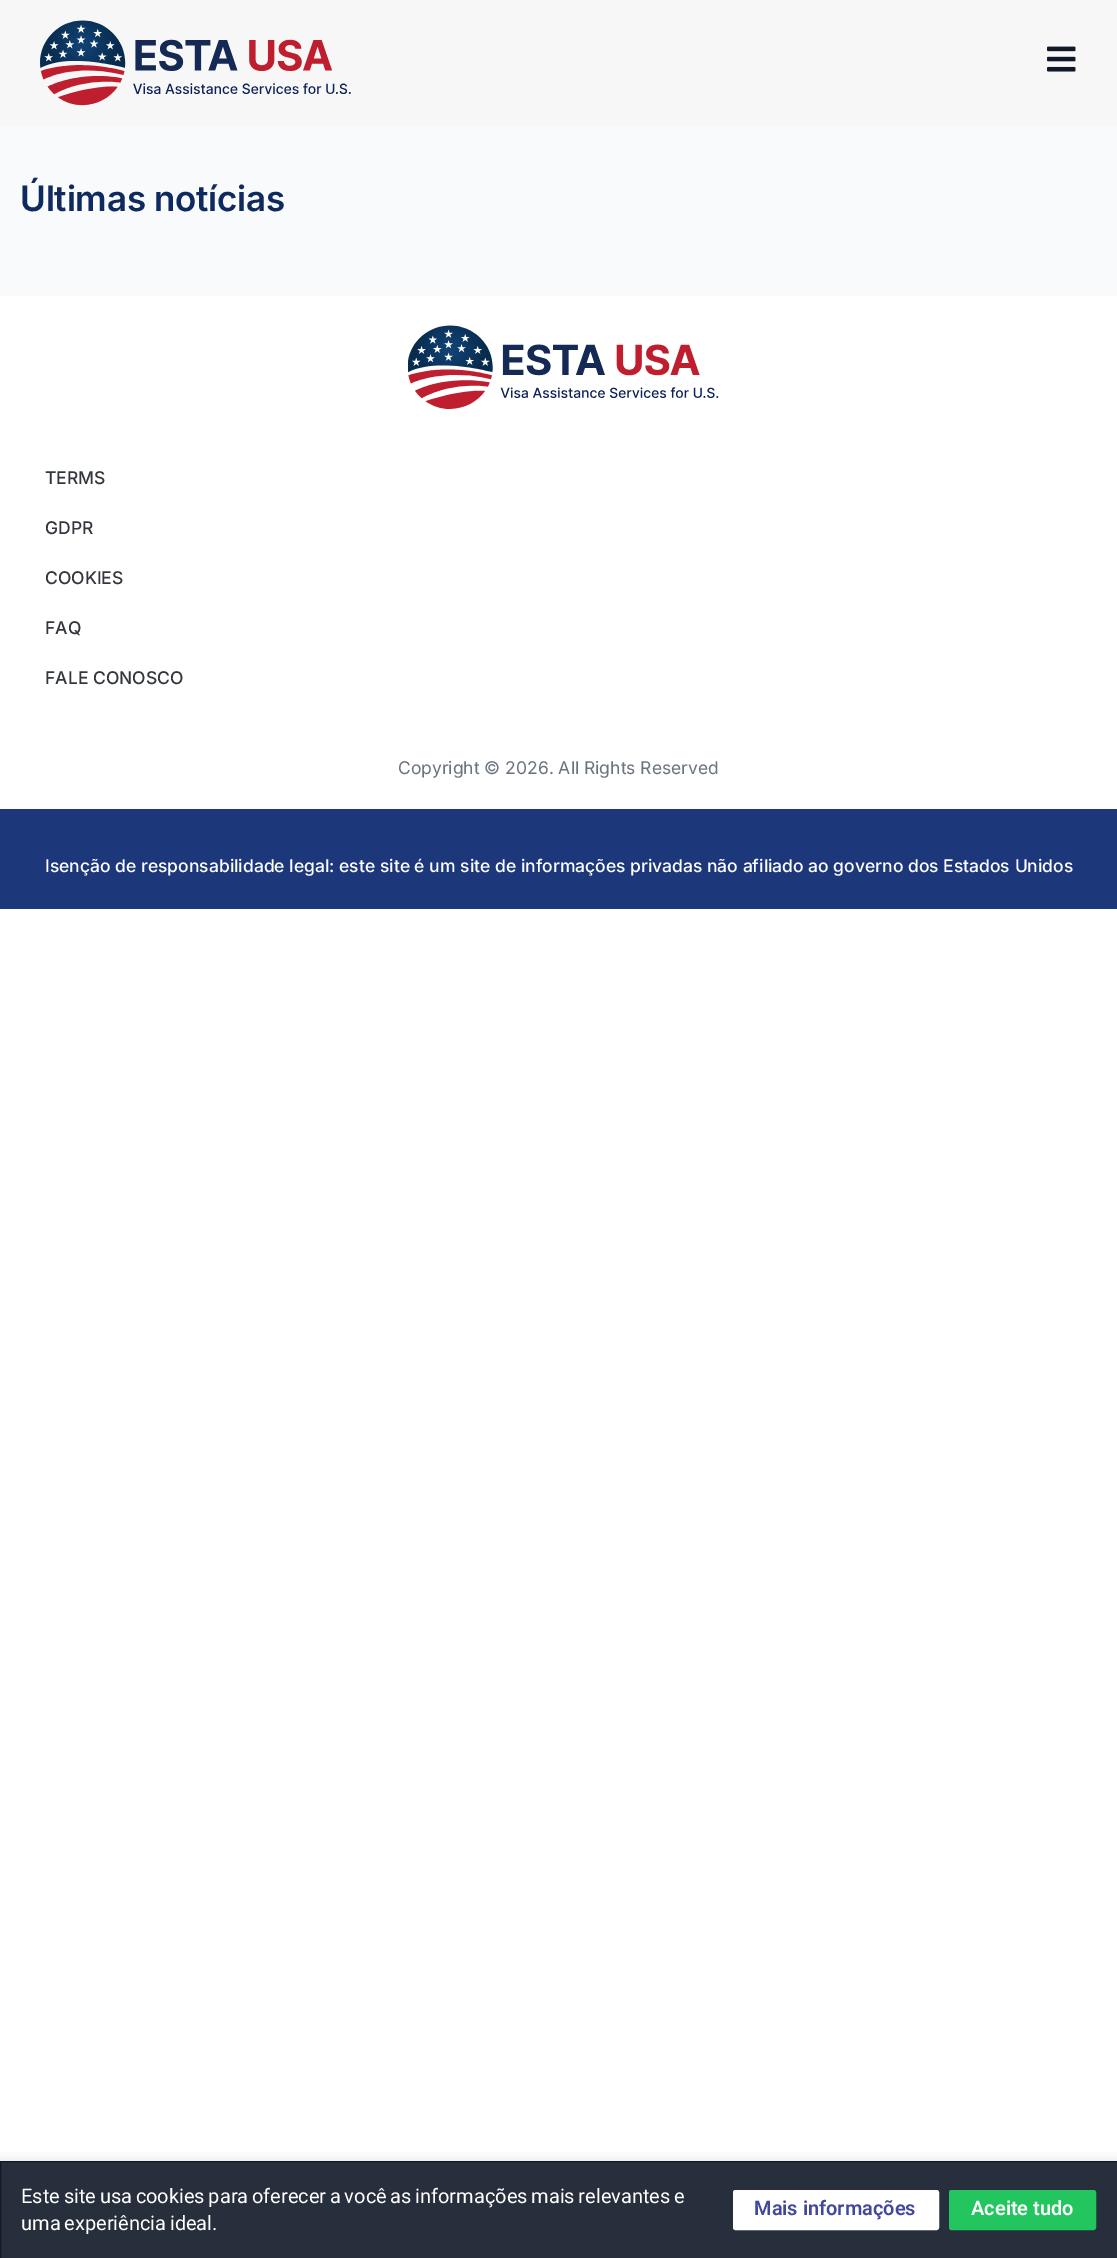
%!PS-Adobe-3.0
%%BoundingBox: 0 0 1117 2258
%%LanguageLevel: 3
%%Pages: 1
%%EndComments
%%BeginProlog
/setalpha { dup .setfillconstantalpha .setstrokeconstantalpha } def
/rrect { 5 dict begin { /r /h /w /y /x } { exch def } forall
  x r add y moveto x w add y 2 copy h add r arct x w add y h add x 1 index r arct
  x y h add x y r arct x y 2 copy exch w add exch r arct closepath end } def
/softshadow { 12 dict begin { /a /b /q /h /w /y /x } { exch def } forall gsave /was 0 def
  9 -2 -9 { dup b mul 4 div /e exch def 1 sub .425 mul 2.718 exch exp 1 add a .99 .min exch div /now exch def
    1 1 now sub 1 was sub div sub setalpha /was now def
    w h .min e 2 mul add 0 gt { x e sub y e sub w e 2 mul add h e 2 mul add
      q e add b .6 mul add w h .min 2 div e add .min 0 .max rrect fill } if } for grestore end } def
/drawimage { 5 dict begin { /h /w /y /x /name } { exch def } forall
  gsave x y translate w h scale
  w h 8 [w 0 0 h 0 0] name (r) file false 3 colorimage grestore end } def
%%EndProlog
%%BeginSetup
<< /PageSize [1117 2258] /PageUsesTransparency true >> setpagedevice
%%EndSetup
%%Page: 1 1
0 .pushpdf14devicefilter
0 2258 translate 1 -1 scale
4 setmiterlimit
1 setgray
0 0 1117 2258 rectfill
0.969 setgray
0 0 1117 126 rectfill
(images/1.raw) 40 20 311 86 drawimage
(images/2.raw) 1047 46 29 26 drawimage
0.976 0.98 0.984 setrgbcolor
0 126 1117 170 rectfill
(images/3.raw) 408 325 311 84 drawimage
0.114 0.216 0.482 setrgbcolor
0 809 1117 100 rectfill
gsave
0 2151 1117 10 rectclip
0.675 0.671 0.671 setrgbcolor
0 2160 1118 98 0 6 0.3 softshadow
grestore
0.9 setalpha
0.067 0.094 0.153 setrgbcolor
newpath 0.5 2161.5 moveto 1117.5 2161.5 lineto 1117.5 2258.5 lineto 0.5 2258.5 lineto closepath fill
1 setalpha
newpath 0.5 2161.5 moveto 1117.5 2161.5 lineto 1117.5 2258.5 lineto 0.5 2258.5 lineto closepath stroke
1 setgray
734.5 2191.5 203 37 1 rrect gsave fill grestore
3 setlinewidth
stroke
0.133 0.773 0.369 setrgbcolor
950.5 2191.5 144 37 1 rrect gsave fill grestore
stroke
/Inter-SemiBold [35 0 0 -35 0 0] selectfont
0.055 0.165 0.369 setrgbcolor
20 211 moveto -0.25 0 (Últimas notícias) ashow
/Inter-Medium [17.5 0 0 -17.5 0 0] selectfont
0.2 0.216 0.239 setrgbcolor
45 484 moveto (TERMS) show
45 534 moveto (GDPR) show
45 584 moveto (COOKIES) show
45 634 moveto (FAQ) show
45 684 moveto (FALE CONOSCO) show
/Inter-Regular [17.5 0 0 -17.5 0 0] selectfont
0.42 0.447 0.502 setrgbcolor
398 774 moveto (Copyright © 2026. All Rights Reserved) show
/Inter-Medium [17.5 0 0 -17.5 0 0] selectfont
1 setgray
45 872 moveto (Isenção de responsabilidade legal: este site é um site de informações privadas não afiliado ao governo dos Estados Unidos) show
/Roboto-Regular [20 0 0 -20 0 0] selectfont
21 2203 moveto -1.25 0 32 (Este site usa cookies para oferecer a você as informações mais relevantes e) widthshow
21 2230 moveto -1.25 0 32 (uma experiência ideal.) widthshow
/Roboto-SemiBold [20 0 0 -20 0 0] selectfont
0.255 0.278 0.608 setrgbcolor
754 2215 moveto (Mais informações) show
1 setgray
971 2215 moveto (Aceite tudo) show
.poppdf14devicefilter showpage
%%EOF
